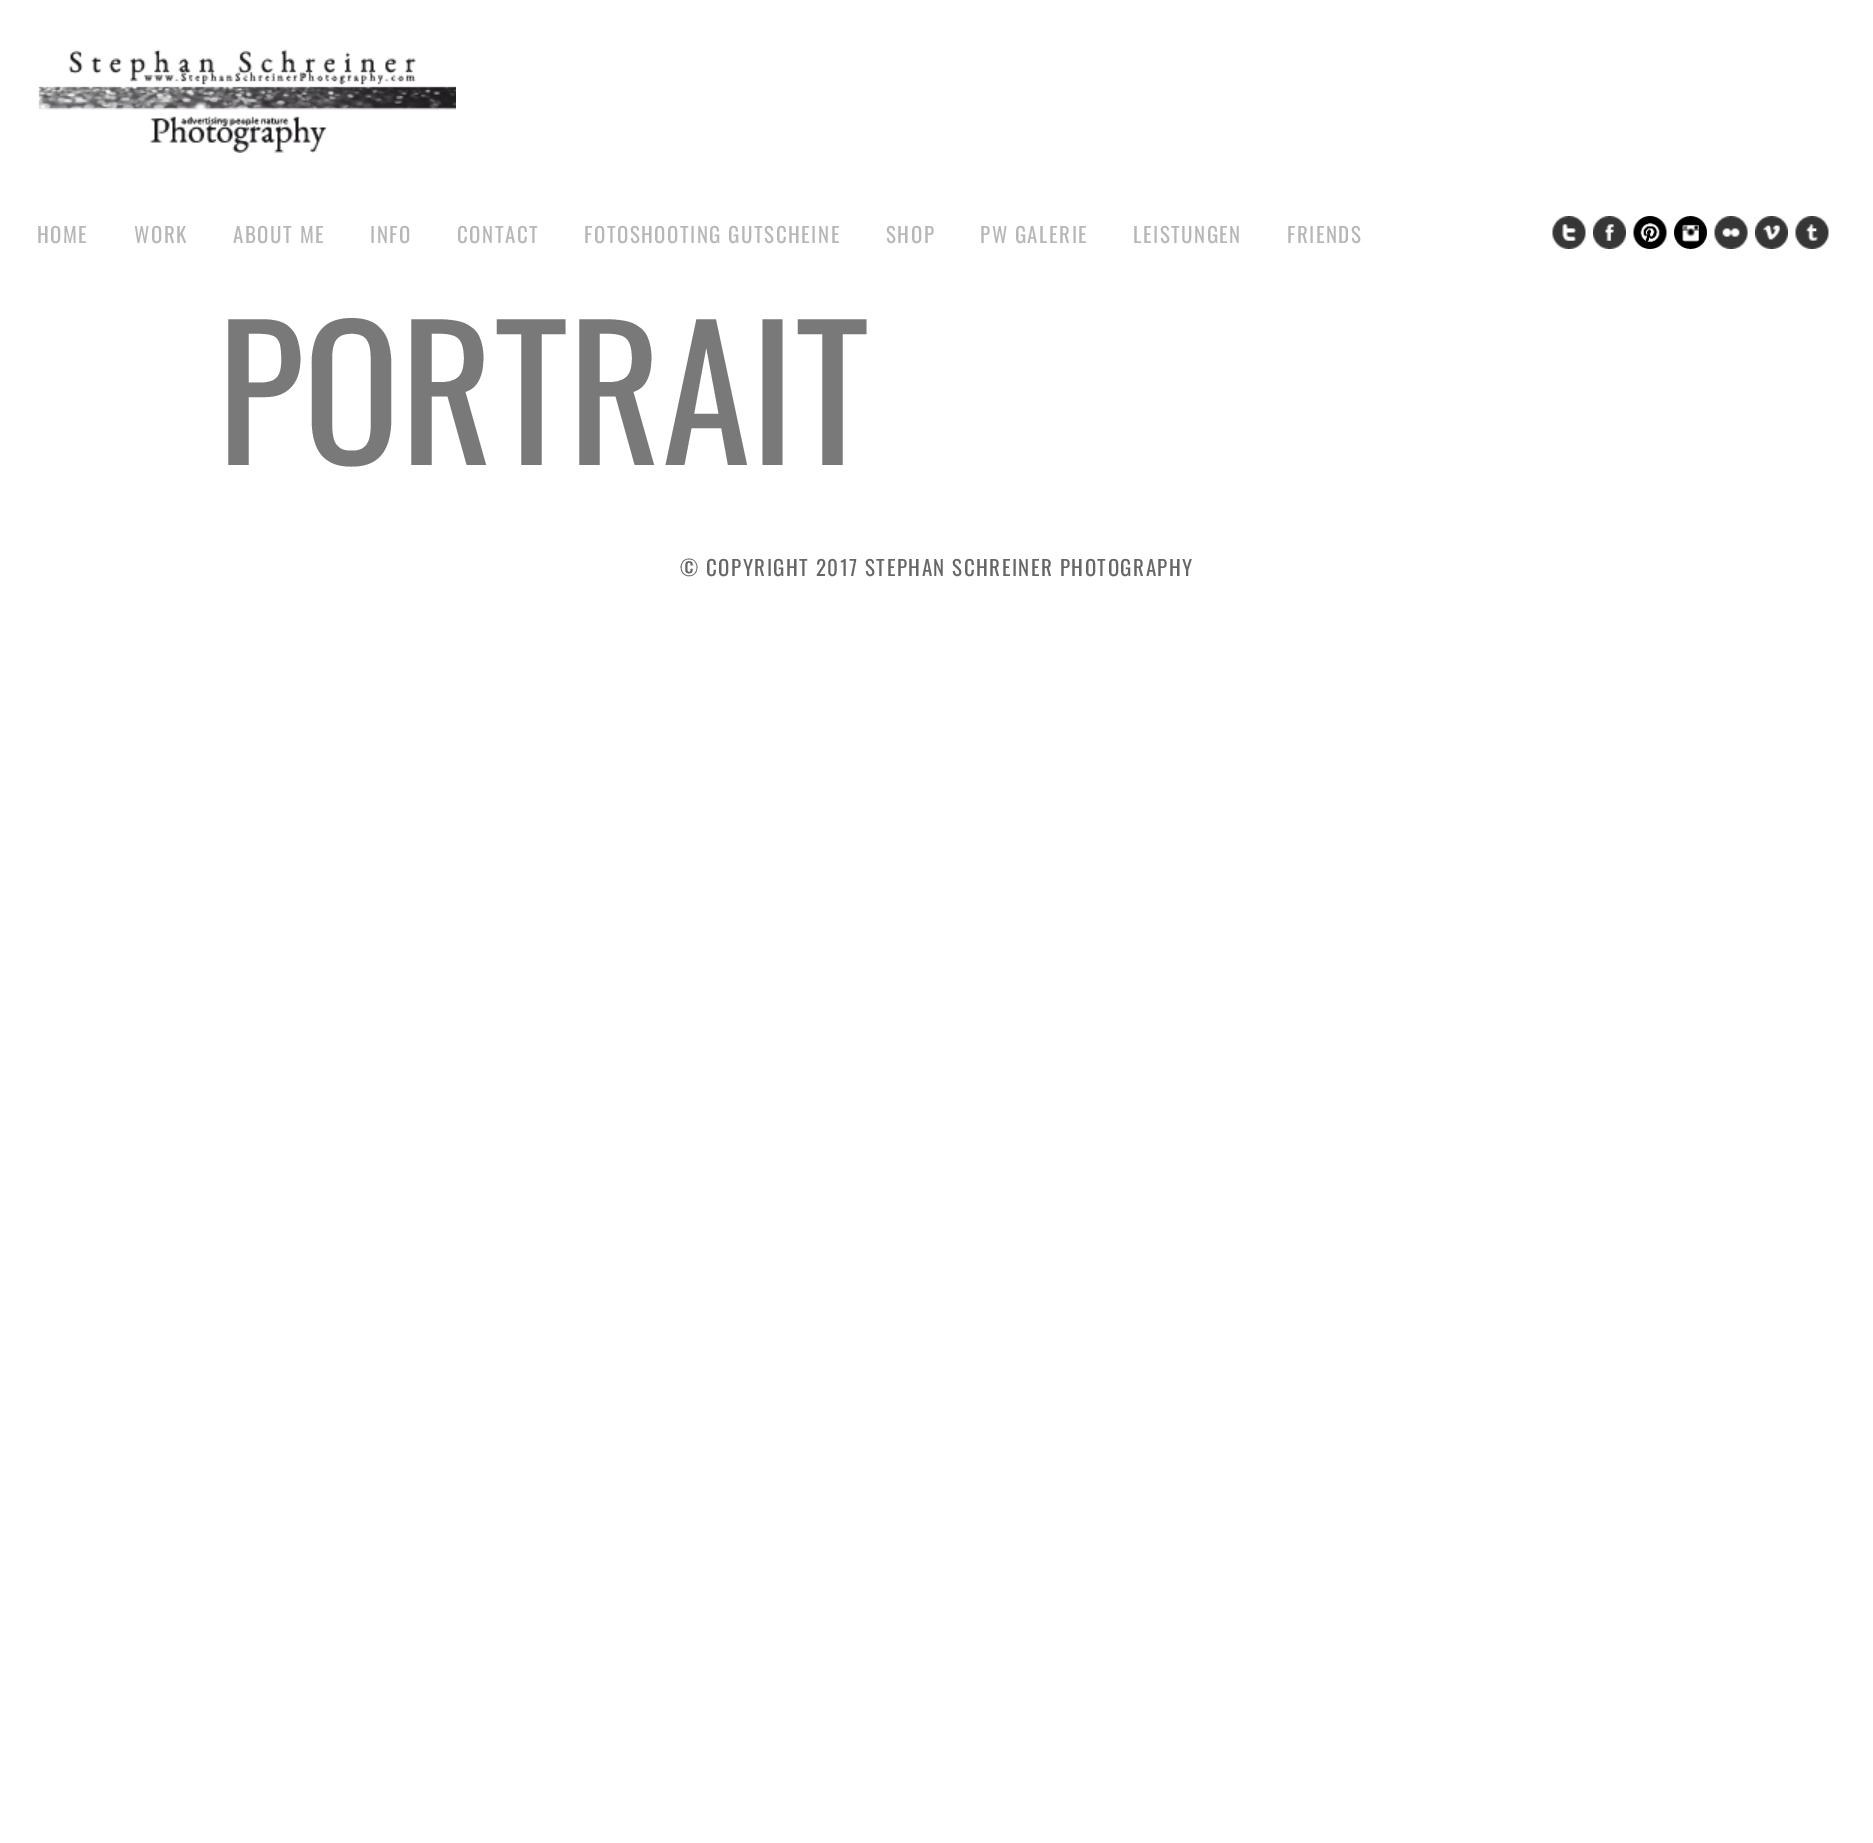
%!PS-Adobe-3.0
%%BoundingBox: 0 0 1873 1843
%%LanguageLevel: 3
%%Pages: 1
%%EndComments
%%BeginProlog
/drawimage { 5 dict begin { /h /w /y /x /name } { exch def } forall
  gsave x y translate w h scale
  w h 8 [w 0 0 h 0 0] name (r) file false 3 colorimage grestore end } def
%%EndProlog
%%BeginSetup
<< /PageSize [1873 1843] >> setpagedevice
%%EndSetup
%%Page: 1 1
0 1843 translate 1 -1 scale
4 setmiterlimit
1 setgray
0 0 1873 1843 rectfill
(images/1.raw) 38 49 418 104 drawimage
(images/2.raw) 1552 216 34 33 drawimage
(images/3.raw) 1593 216 33 33 drawimage
(images/4.raw) 1633 216 34 33 drawimage
(images/5.raw) 1674 216 33 33 drawimage
(images/6.raw) 1714 216 34 33 drawimage
(images/7.raw) 1755 216 33 33 drawimage
(images/8.raw) 1795 216 34 33 drawimage
/Oswald-Regular [21 0 0 -21 0 0] selectfont
0.718 setgray
37 243 moveto 1.5 0 (HOME) ashow
134 243 moveto 1.5 0 (WORK) ashow
233 243 moveto 1.5 0 (ABOUT ME) ashow
370 243 moveto 1.5 0 (INFO) ashow
457 243 moveto 1.5 0 (CONTACT) ashow
584 243 moveto 1.5 0 (FOTOSHOOTING GUTSCHEINE) ashow
886 243 moveto 1.5 0 (SHOP) ashow
980 243 moveto 1.5 0 (PW GALERIE) ashow
1133 243 moveto 1.5 0 (LEISTUNGEN) ashow
1287 243 moveto 1.5 0 (FRIENDS) ashow
/Oswald-Regular [180 0 0 -180 0 0] selectfont
0.475 setgray
217 465 moveto (PORTRAIT) show
/Oswald-Regular [21 0 0 -21 0 0] selectfont
0.4 setgray
680 576 moveto 1.5 0 (© COPYRIGHT 2017 STEPHAN SCHREINER PHOTOGRAPHY) ashow
showpage
%%EOF
